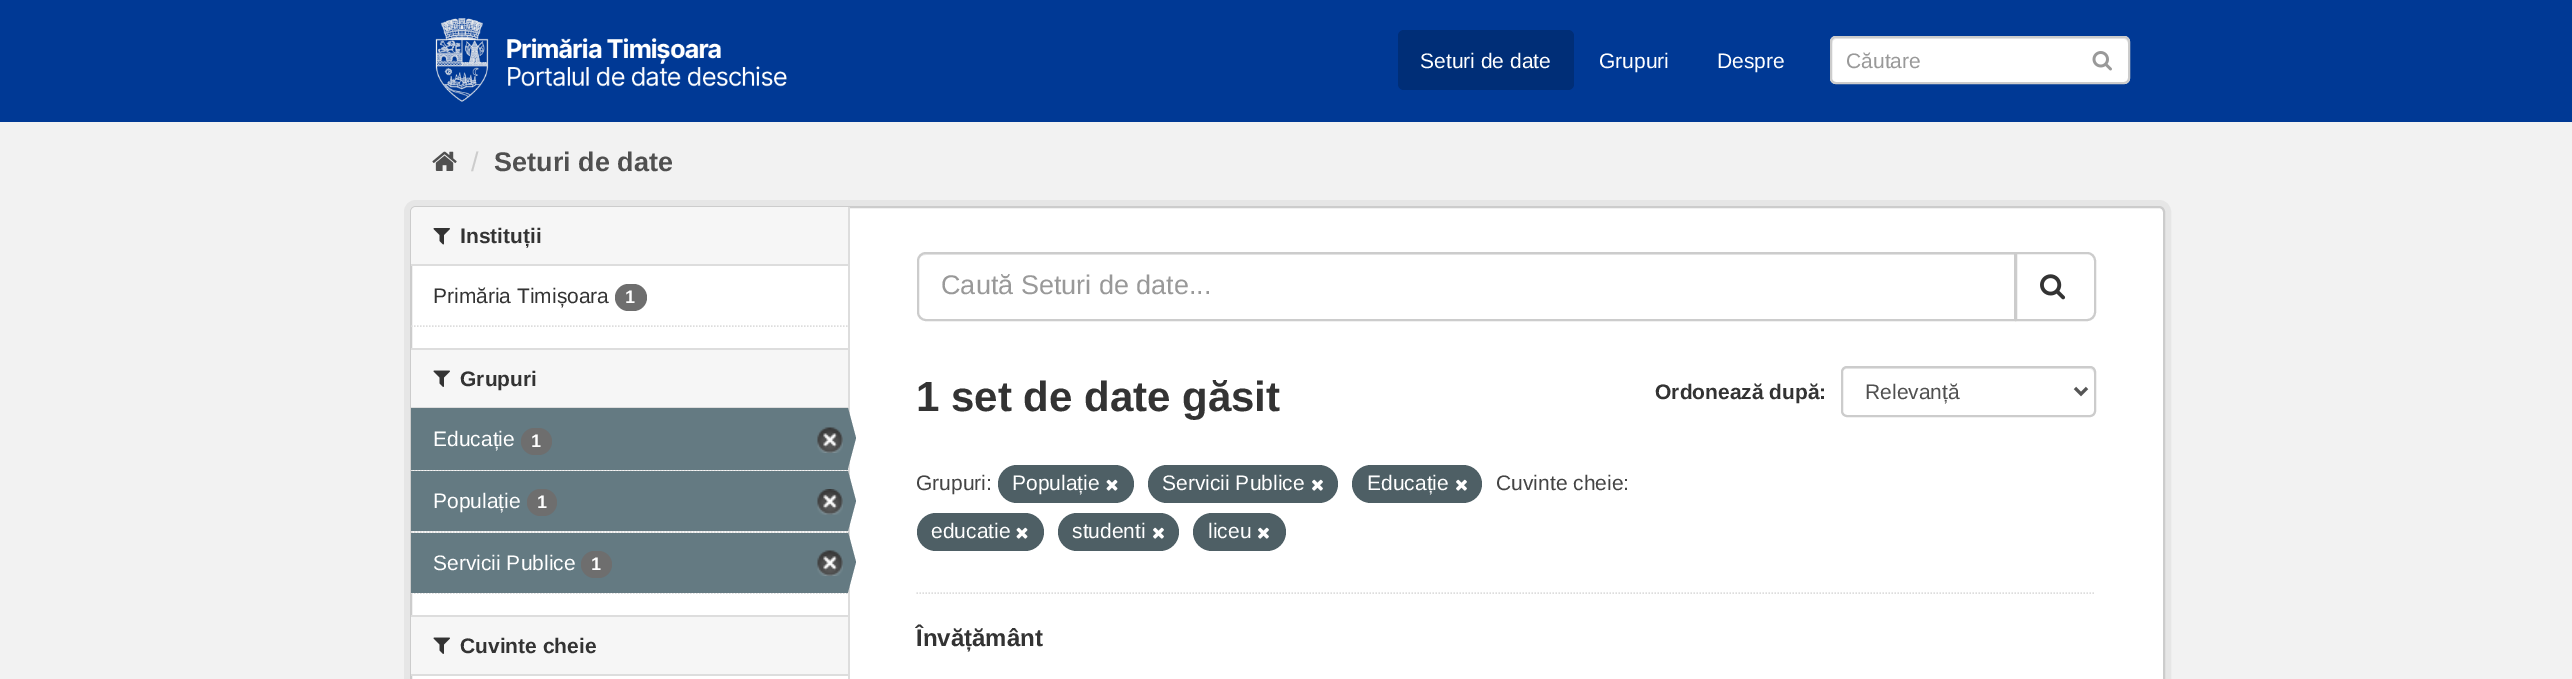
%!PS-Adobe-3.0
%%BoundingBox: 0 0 2572 679
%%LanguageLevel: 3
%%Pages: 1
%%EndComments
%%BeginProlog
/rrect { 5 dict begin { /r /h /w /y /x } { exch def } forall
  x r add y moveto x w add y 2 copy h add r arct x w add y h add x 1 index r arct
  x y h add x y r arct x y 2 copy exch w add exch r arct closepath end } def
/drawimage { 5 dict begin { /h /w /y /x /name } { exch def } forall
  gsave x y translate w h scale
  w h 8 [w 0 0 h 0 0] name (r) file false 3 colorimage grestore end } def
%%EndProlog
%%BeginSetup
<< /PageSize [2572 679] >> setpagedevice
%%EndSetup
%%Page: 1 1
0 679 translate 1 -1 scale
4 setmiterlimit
0.949 setgray
0 0 2572 679 rectfill
0 0.224 0.584 setrgbcolor
0 0 2572 122 rectfill
(images/1.raw) 435 18 352 84 drawimage
0 0.18 0.467 setrgbcolor
1398 30 176 60 6 rrect fill
1 setgray
1830 36 300 48 6 rrect fill
0.925 setgray
newpath 1836 39 moveto 2124 39 lineto 2126 39 2128 41 2128 44 curveto 2128 81 lineto 2129 80 2129 79 2129 78 curveto 2129 43 lineto 2129 40 2127 38 2124 38 curveto 1837 38 lineto 1834 38 1832 40 1832 43 curveto 1832 44 lineto 1832 41 1834 39 1836 39 curveto closepath fill
0.8 setgray
2 setlinewidth
1831 37 298 46 5 rrect stroke
(images/2.raw) 2092 51 20 20 drawimage
(images/3.raw) 432 151 25 20 drawimage
0.902 setgray
6 setlinewidth
407 203 1761 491 9 rrect stroke
1 setgray
411 207 1753 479 5 rrect gsave fill grestore
0.8 setgray
2 setlinewidth
stroke
0.965 setgray
newpath 416 207 moveto 848 207 lineto 848 266 lineto 411 266 lineto 411 212 lineto 411 209 413 207 416 207 curveto closepath fill
0.867 setgray
411 264 437 2 rectfill
(images/4.raw) 433 228 17 17 drawimage
0.431 setgray
615 284 32 27 13.5 rrect fill
0.867 setgray
1.5 setlinewidth
[1.5 1.5] 0 setdash
newpath 411 326 moveto 847.5 326 lineto stroke
0.965 setgray
411 350 437 57 rectfill
0.867 setgray
411 348 437 2 rectfill
411 407 437 1 rectfill
(images/5.raw) 433 370 17 17 drawimage
0.965 setgray
411 470 437 1 rectfill
0.867 setgray
newpath 411 470 moveto 847.5 470 lineto stroke
0.392 0.478 0.51 setrgbcolor
411 408 437 62 rectfill
0.431 setgray
521 428 31 27 13.5 rrect fill
(images/6.raw) 817 427 26 26 drawimage
0.867 setgray
848 207 2 472 rectfill
0.392 0.478 0.51 setrgbcolor
newpath 848 468 moveto 848 408 lineto 856 438 lineto closepath fill
0.965 setgray
411 531 437 2 rectfill
0.867 setgray
newpath 411 532 moveto 847.5 532 lineto stroke
0.392 0.478 0.51 setrgbcolor
411 471 437 60 rectfill
0.431 setgray
527 489 30 27 13.5 rrect fill
(images/7.raw) 817 489 26 26 drawimage
0.392 0.478 0.51 setrgbcolor
newpath 848 531 moveto 848 471 lineto 856 501 lineto closepath fill
0.867 setgray
newpath 411 593 moveto 847.5 593 lineto stroke
0.392 0.478 0.51 setrgbcolor
411 533 437 60 rectfill
0.431 setgray
581 551 31 27 13.5 rrect fill
(images/6.raw) 817 550 26 26 drawimage
0.392 0.478 0.51 setrgbcolor
newpath 848 592 moveto 848 532 lineto 856 562 lineto closepath fill
0.965 setgray
411 617 437 57 rectfill
0.867 setgray
411 615 437 2 rectfill
411 674 437 2 rectfill
(images/5.raw) 433 637 17 17 drawimage
newpath 916.5 593 moveto 2095.5 593 lineto stroke
0.925 setgray
newpath 926 255 moveto 2014 255 lineto 2014 320 lineto 2015 320 lineto 2015 254 lineto 926 254 lineto 922 254 918 258 918 262 curveto 918 258 921 255 926 255 curveto closepath fill
0.8 setgray
2 setlinewidth
[] 0 setdash
newpath 926 253 moveto 2015 253 lineto 2015 320 lineto 926 320 lineto 921.5 320 918 316.5 918 312 curveto 918 261 lineto 918 256.5 921.5 253 926 253 curveto closepath stroke
1 setgray
newpath 2016 253 moveto 2087 253 lineto 2091.5 253 2095 256.5 2095 261 curveto 2095 312 lineto 2095 316.5 2091.5 320 2087 320 curveto 2016 320 lineto closepath gsave fill grestore
0.8 setgray
stroke
(images/8.raw) 2040 274 26 26 drawimage
0.925 setgray
newpath 1846 369 moveto 2090 369 lineto 2092 369 2094 371 2094 374 curveto 2094 373 lineto 2094 370 2092 368 2089 368 curveto 1847 368 lineto 1844 368 1842 370 1842 373 curveto 1842 374 lineto 1842 371 1844 369 1846 369 curveto closepath fill
0.8 setgray
1842 367 253 49 5 rrect stroke
0.333 setgray
3 setlinewidth
newpath 2075 388 moveto 2081 394 lineto 2087 388 lineto stroke
0.306 0.373 0.396 setrgbcolor
998 465 136 38 19 rrect fill
(images/9.raw) 1106 479 12 12 drawimage
1148 465 190 38 19 rrect fill
(images/10.raw) 1312 479 11 12 drawimage
1352 465 130 38 19 rrect fill
(images/10.raw) 1456 479 11 12 drawimage
917 513 127 38 19 rrect fill
(images/9.raw) 1016 527 12 12 drawimage
1058 513 121 38 19 rrect fill
(images/10.raw) 1153 527 11 12 drawimage
1193 513 93 38 19 rrect fill
(images/10.raw) 1258 527 11 12 drawimage
/LiberationSans-Regular [21 0 0 -21 0 0] selectfont
1 setgray
1420 68 moveto (Seturi de date) show
1599 68 moveto (Grupuri) show
1717 68 moveto (Despre) show
gsave
1847 48 267 24 rectclip
0.6 setgray
1846 68 moveto (Căutare) show
grestore
/LiberationSans-Regular [27 0 0 -27 0 0] selectfont
0.8 setgray
471 171 moveto (/) show
/LiberationSans-Bold [27 0 0 -27 0 0] selectfont
0.314 setgray
494 171 moveto (Seturi de date) show
/LiberationSans-Bold [21 0 0 -21 0 0] selectfont
0.2 setgray
460 243 moveto (Instituții) show
/LiberationSans-Regular [21 0 0 -21 0 0] selectfont
433 303 moveto (Primăria Timișoara) show
/LiberationSans-Bold [18 0 0 -18 0 0] selectfont
1 setgray
625 303 moveto (1) show
/LiberationSans-Bold [21 0 0 -21 0 0] selectfont
0.2 setgray
460 386 moveto (Grupuri) show
/LiberationSans-Regular [21 0 0 -21 0 0] selectfont
1 setgray
433 446 moveto (Educație) show
/LiberationSans-Bold [18 0 0 -18 0 0] selectfont
531 447 moveto (1) show
/LiberationSans-Regular [21 0 0 -21 0 0] selectfont
433 508 moveto (Populație) show
/LiberationSans-Bold [18 0 0 -18 0 0] selectfont
537 508 moveto (1) show
/LiberationSans-Regular [21 0 0 -21 0 0] selectfont
433 570 moveto (Servicii Publice) show
/LiberationSans-Bold [18 0 0 -18 0 0] selectfont
591 570 moveto (1) show
/LiberationSans-Bold [21 0 0 -21 0 0] selectfont
0.2 setgray
460 653 moveto (Cuvinte cheie) show
/LiberationSans-Regular [27 0 0 -27 0 0] selectfont
0.6 setgray
941 294 moveto (Caută Seturi de date...) show
/LiberationSans-Bold [42 0 0 -42 0 0] selectfont
0.2 setgray
916 411 moveto (1 set de date găsit) show
/LiberationSans-Bold [21 0 0 -21 0 0] selectfont
1655 399 moveto (Ordonează după:) show
/LiberationSans-Regular [21 0 0 -21 0 0] selectfont
0.314 setgray
1865 399 moveto (Relevanță) show
0.267 setgray
916 490 moveto (Grupuri:) show
1 setgray
1012 490 moveto (Populație) show
1162 490 moveto (Servicii Publice) show
1367 490 moveto (Educație) show
0.267 setgray
1496 490 moveto (Cuvinte cheie:) show
1 setgray
931 538 moveto (educatie) show
1072 538 moveto (studenti) show
1208 538 moveto (liceu) show
/LiberationSans-Bold [24 0 0 -24 0 0] selectfont
0.2 setgray
916 646 moveto (Învățământ) show
showpage
%%EOF
